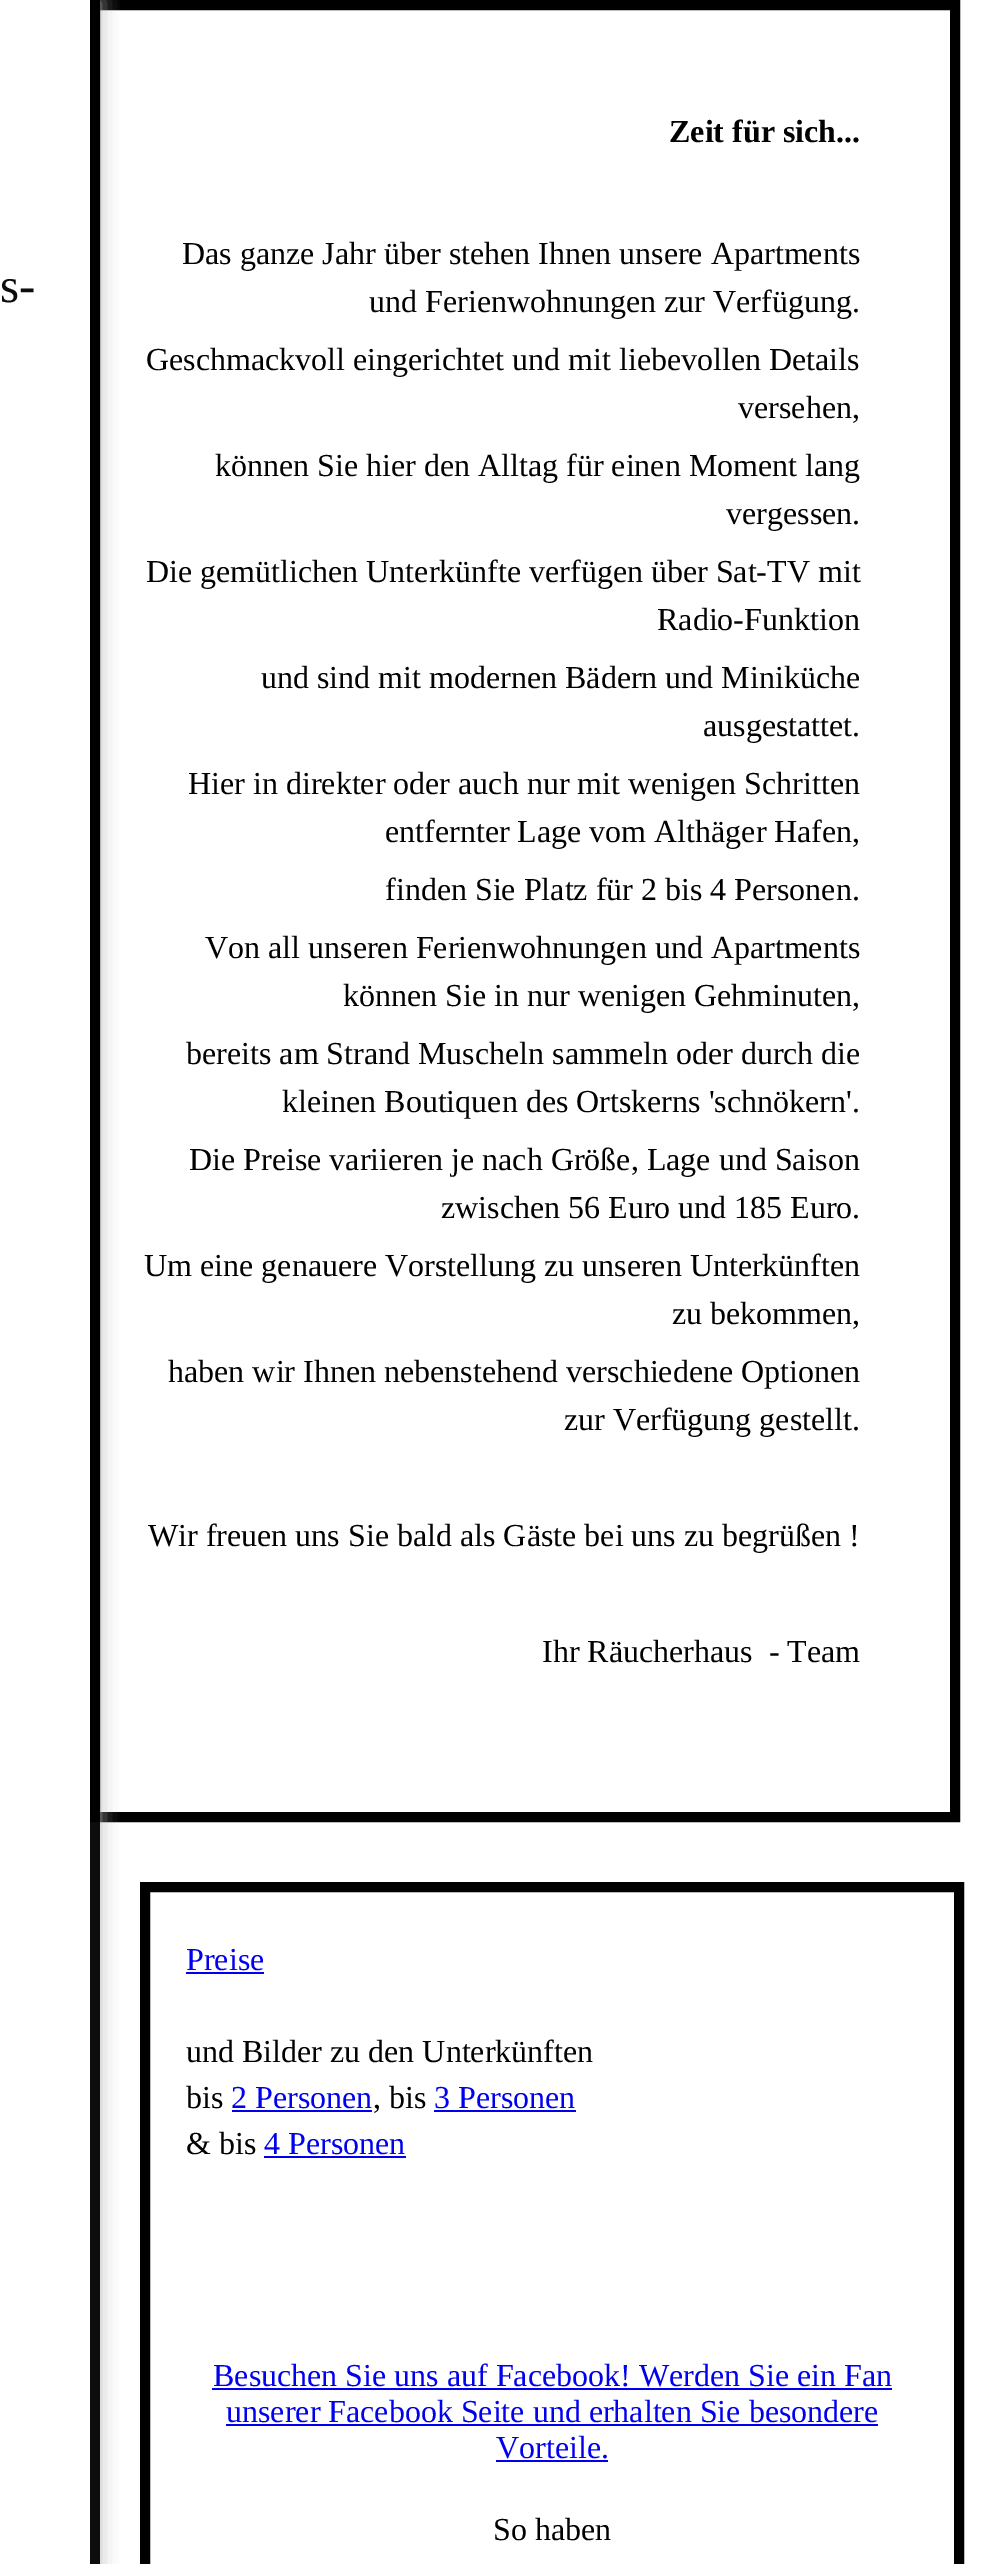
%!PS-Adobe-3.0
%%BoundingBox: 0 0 987 2564
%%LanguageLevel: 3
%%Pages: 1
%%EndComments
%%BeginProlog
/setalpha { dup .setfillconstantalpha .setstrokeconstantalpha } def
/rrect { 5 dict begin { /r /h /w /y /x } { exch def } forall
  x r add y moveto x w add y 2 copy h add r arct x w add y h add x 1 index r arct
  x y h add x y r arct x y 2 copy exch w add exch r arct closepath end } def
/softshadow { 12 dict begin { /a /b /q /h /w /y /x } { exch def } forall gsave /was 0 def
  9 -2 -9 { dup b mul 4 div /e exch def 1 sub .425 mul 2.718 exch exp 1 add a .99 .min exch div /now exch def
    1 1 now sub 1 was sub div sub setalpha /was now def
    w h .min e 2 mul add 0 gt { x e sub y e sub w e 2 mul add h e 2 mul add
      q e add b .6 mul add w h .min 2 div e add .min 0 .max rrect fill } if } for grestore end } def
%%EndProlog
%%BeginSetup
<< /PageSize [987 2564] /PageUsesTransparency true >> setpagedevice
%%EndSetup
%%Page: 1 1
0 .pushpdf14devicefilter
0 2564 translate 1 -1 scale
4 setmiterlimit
1 setgray
0 0 987 2564 rectfill
0 setgray
10 setlinewidth
95 5 860 1812 rectstroke
gsave
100 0 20 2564 rectclip
0.71 setgray
-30 0 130 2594 0 10 0.95 softshadow
grestore
0.95 setalpha
90 1822 10 742 rectfill
1 setalpha
145 1887 814 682 rectstroke
0 0 0.933 setrgbcolor
186 1972 78 2 rectfill
232 2110 140 2 rectfill
434 2110 142 2 rectfill
264 2156 142 2 rectfill
212 2388 680 2 rectfill
226 2424 652 2 rectfill
496 2460 112 2 rectfill
/LiberationSerif-Regular [49 0 0 -49 0 0] selectfont
0.051 setgray
0 302 moveto (s-) show
/LiberationSerif-Bold [32 0 0 -32 0 0] selectfont
0 setgray
669 142 moveto (Zeit für sich...) show
/LiberationSerif-Regular [32 0 0 -32 0 0] selectfont
182 264 moveto (Das ganze Jahr über stehen Ihnen unsere Apartments) show
369 312 moveto (und Ferienwohnungen zur Verfügung.) show
146 370 moveto (Geschmackvoll eingerichtet und mit liebevollen Details) show
738 418 moveto (versehen,) show
215 476 moveto (können Sie hier den Alltag für einen Moment lang) show
726 524 moveto (vergessen.) show
146 582 moveto (Die gemütlichen Unterkünfte verfügen über Sat-TV mit) show
657 630 moveto (Radio-Funktion) show
261 688 moveto (und sind mit modernen Bädern und Miniküche) show
703 736 moveto (ausgestattet.) show
188 794 moveto (Hier in direkter oder auch nur mit wenigen Schritten) show
385 842 moveto (entfernter Lage vom Althäger Hafen,) show
385 900 moveto (finden Sie Platz für 2 bis 4 Personen.) show
205 958 moveto (Von all unseren Ferienwohnungen und Apartments) show
343 1006 moveto (können Sie in nur wenigen Gehminuten,) show
186 1064 moveto (bereits am Strand Muscheln sammeln oder durch die) show
282 1112 moveto (kleinen Boutiquen des Ortskerns 'schnökern'.) show
189 1170 moveto (Die Preise variieren je nach Größe, Lage und Saison) show
441 1218 moveto (zwischen 56 Euro und 185 Euro.) show
144 1276 moveto (Um eine genauere Vorstellung zu unseren Unterkünften) show
672 1324 moveto (zu bekommen,) show
168 1382 moveto (haben wir Ihnen nebenstehend verschiedene Optionen) show
564 1430 moveto (zur Verfügung gestellt.) show
148 1546 moveto (Wir freuen uns Sie bald als Gäste bei uns zu begrüßen !) show
542 1662 moveto (Ihr Räucherhaus  - Team) show
0 0 0.933 setrgbcolor
186 1970 moveto (Preise) show
0 setgray
186 2062 moveto (und Bilder zu den Unterkünften) show
186 2108 moveto (bis) show
0 0 0.933 setrgbcolor
231 2108 moveto (2 Personen) show
0 setgray
373 2108 moveto (, bis) show
0 0 0.933 setrgbcolor
434 2108 moveto (3 Personen) show
0 setgray
186 2154 moveto (& bis) show
0 0 0.933 setrgbcolor
264 2154 moveto (4 Personen) show
213 2386 moveto (Besuchen Sie uns auf Facebook! Werden Sie ein Fan) show
226 2422 moveto (unserer Facebook Seite und erhalten Sie besondere) show
496 2458 moveto (Vorteile.) show
0 setgray
493 2540 moveto (So haben) show
.poppdf14devicefilter showpage
%%EOF
